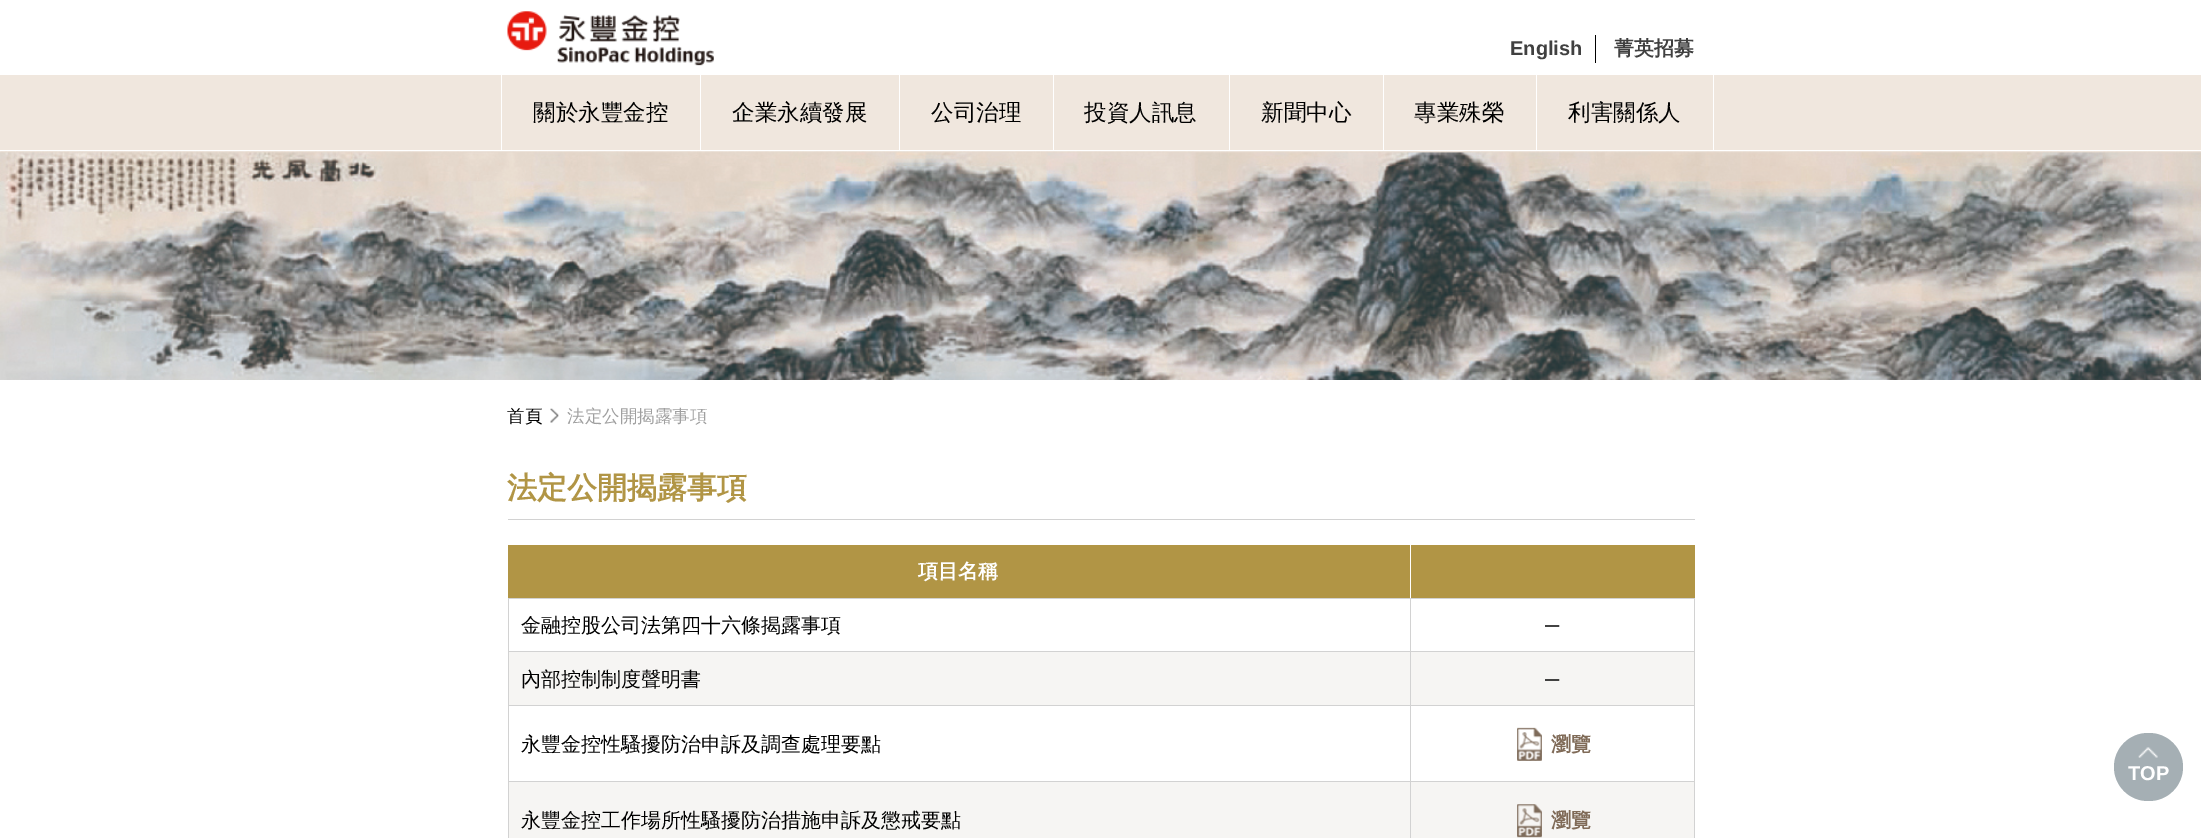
%!PS-Adobe-3.0
%%BoundingBox: 0 0 2201 838
%%LanguageLevel: 3
%%Pages: 1
%%EndComments
%%BeginProlog
/rrect { 5 dict begin { /r /h /w /y /x } { exch def } forall
  x r add y moveto x w add y 2 copy h add r arct x w add y h add x 1 index r arct
  x y h add x y r arct x y 2 copy exch w add exch r arct closepath end } def
/drawimage { 5 dict begin { /h /w /y /x /name } { exch def } forall
  gsave x y translate w h scale
  w h 8 [w 0 0 h 0 0] name (r) file false 3 colorimage grestore end } def
%%EndProlog
%%BeginSetup
<< /PageSize [2201 838] >> setpagedevice
%%EndSetup
%%Page: 1 1
0 838 translate 1 -1 scale
4 setmiterlimit
1 setgray
0 0 2201 838 rectfill
(images/1.raw) 507 11 207 55 drawimage
0 setgray
1595 35 1 28 rectfill
0.941 0.906 0.871 setrgbcolor
0 75 2201 75 rectfill
1 setgray
501 75 1 75 rectfill
700 75 1 75 rectfill
899 75 1 75 rectfill
1053 75 1 75 rectfill
1229 75 1 75 rectfill
1383 75 1 75 rectfill
1713 75 1 75 rectfill
1536 75 1 75 rectfill
(images/2.raw) 0 151 2201 229 drawimage
(images/3.raw) 550 408 9 15 drawimage
0.824 setgray
508 519 1187 1 rectfill
0.694 0.584 0.271 setrgbcolor
508 545 902 53 rectfill
1411 545 284 53 rectfill
0.824 setgray
508 598 1187 1 rectfill
508 598 1 53 rectfill
1694 598 1 53 rectfill
1410 598 1 53 rectfill
0.965 0.961 0.953 setrgbcolor
509 652 1185 53 rectfill
0.824 setgray
508 651 1187 1 rectfill
508 651 1 54 rectfill
1694 651 1 54 rectfill
1410 651 1 54 rectfill
508 705 1187 1 rectfill
508 705 1 76 rectfill
1694 705 1 76 rectfill
1410 705 1 76 rectfill
(images/4.raw) 1517 727 25 34 drawimage
0.965 0.961 0.953 setrgbcolor
509 782 1185 56 rectfill
0.824 setgray
508 781 1187 1 rectfill
508 781 1 57 rectfill
1694 781 1 57 rectfill
1410 781 1 57 rectfill
(images/5.raw) 1517 804 25 34 drawimage
0.647 0.686 0.706 setrgbcolor
2114 733 69 68 34 rrect fill
(images/6.raw) 2138 747 20 11 drawimage
/LiberationSans-Bold [20 0 0 -20 0 0] selectfont
0.251 setgray
1510 55 moveto (English) show
/WenQuanYiZenHei-Bold [20 0 0 -20 0 0] selectfont
1614 55 moveto (菁英招募) show
/WenQuanYiZenHei-Medium [22.5 0 0 -22.5 0 0] selectfont
0 setgray
533 120 moveto (關於永豐金控) show
732 120 moveto (企業永續發展) show
931 120 moveto (公司治理) show
1084 120 moveto (投資人訊息) show
1261 120 moveto (新聞中心) show
1414 120 moveto (專業殊榮) show
1568 120 moveto (利害關係人) show
/WenQuanYiZenHei-Medium [17.5 0 0 -17.5 0 0] selectfont
507 422 moveto (首頁) show
0.627 setgray
567 422 moveto (法定公開揭露事項) show
/WenQuanYiZenHei-Bold [30 0 0 -30 0 0] selectfont
0.694 0.584 0.271 setrgbcolor
507 498 moveto (法定公開揭露事項) show
/WenQuanYiZenHei-Bold [20 0 0 -20 0 0] selectfont
1 setgray
918 578 moveto (項目名稱) show
/WenQuanYiZenHei-Medium [20 0 0 -20 0 0] selectfont
0 setgray
521 632 moveto (金融控股公司法第四十六條揭露事項) show
/LiberationSans-Regular [20 0 0 -20 0 0] selectfont
1545 632 moveto (─) show
/WenQuanYiZenHei-Medium [20 0 0 -20 0 0] selectfont
521 686 moveto (內部控制制度聲明書) show
/LiberationSans-Regular [20 0 0 -20 0 0] selectfont
1545 686 moveto (─) show
/WenQuanYiZenHei-Medium [20 0 0 -20 0 0] selectfont
521 751 moveto (永豐金控性騷擾防治申訴及調查處理要點) show
/WenQuanYiZenHei-Bold [20 0 0 -20 0 0] selectfont
0.502 0.42 0.345 setrgbcolor
1551 751 moveto (瀏覽) show
/WenQuanYiZenHei-Medium [20 0 0 -20 0 0] selectfont
0 setgray
521 827 moveto (永豐金控工作場所性騷擾防治措施申訴及懲戒要點) show
/WenQuanYiZenHei-Bold [20 0 0 -20 0 0] selectfont
0.502 0.42 0.345 setrgbcolor
1551 827 moveto (瀏覽) show
/LiberationSans-Bold [20 0 0 -20 0 0] selectfont
1 setgray
2128 780 moveto (TOP) show
showpage
%%EOF
